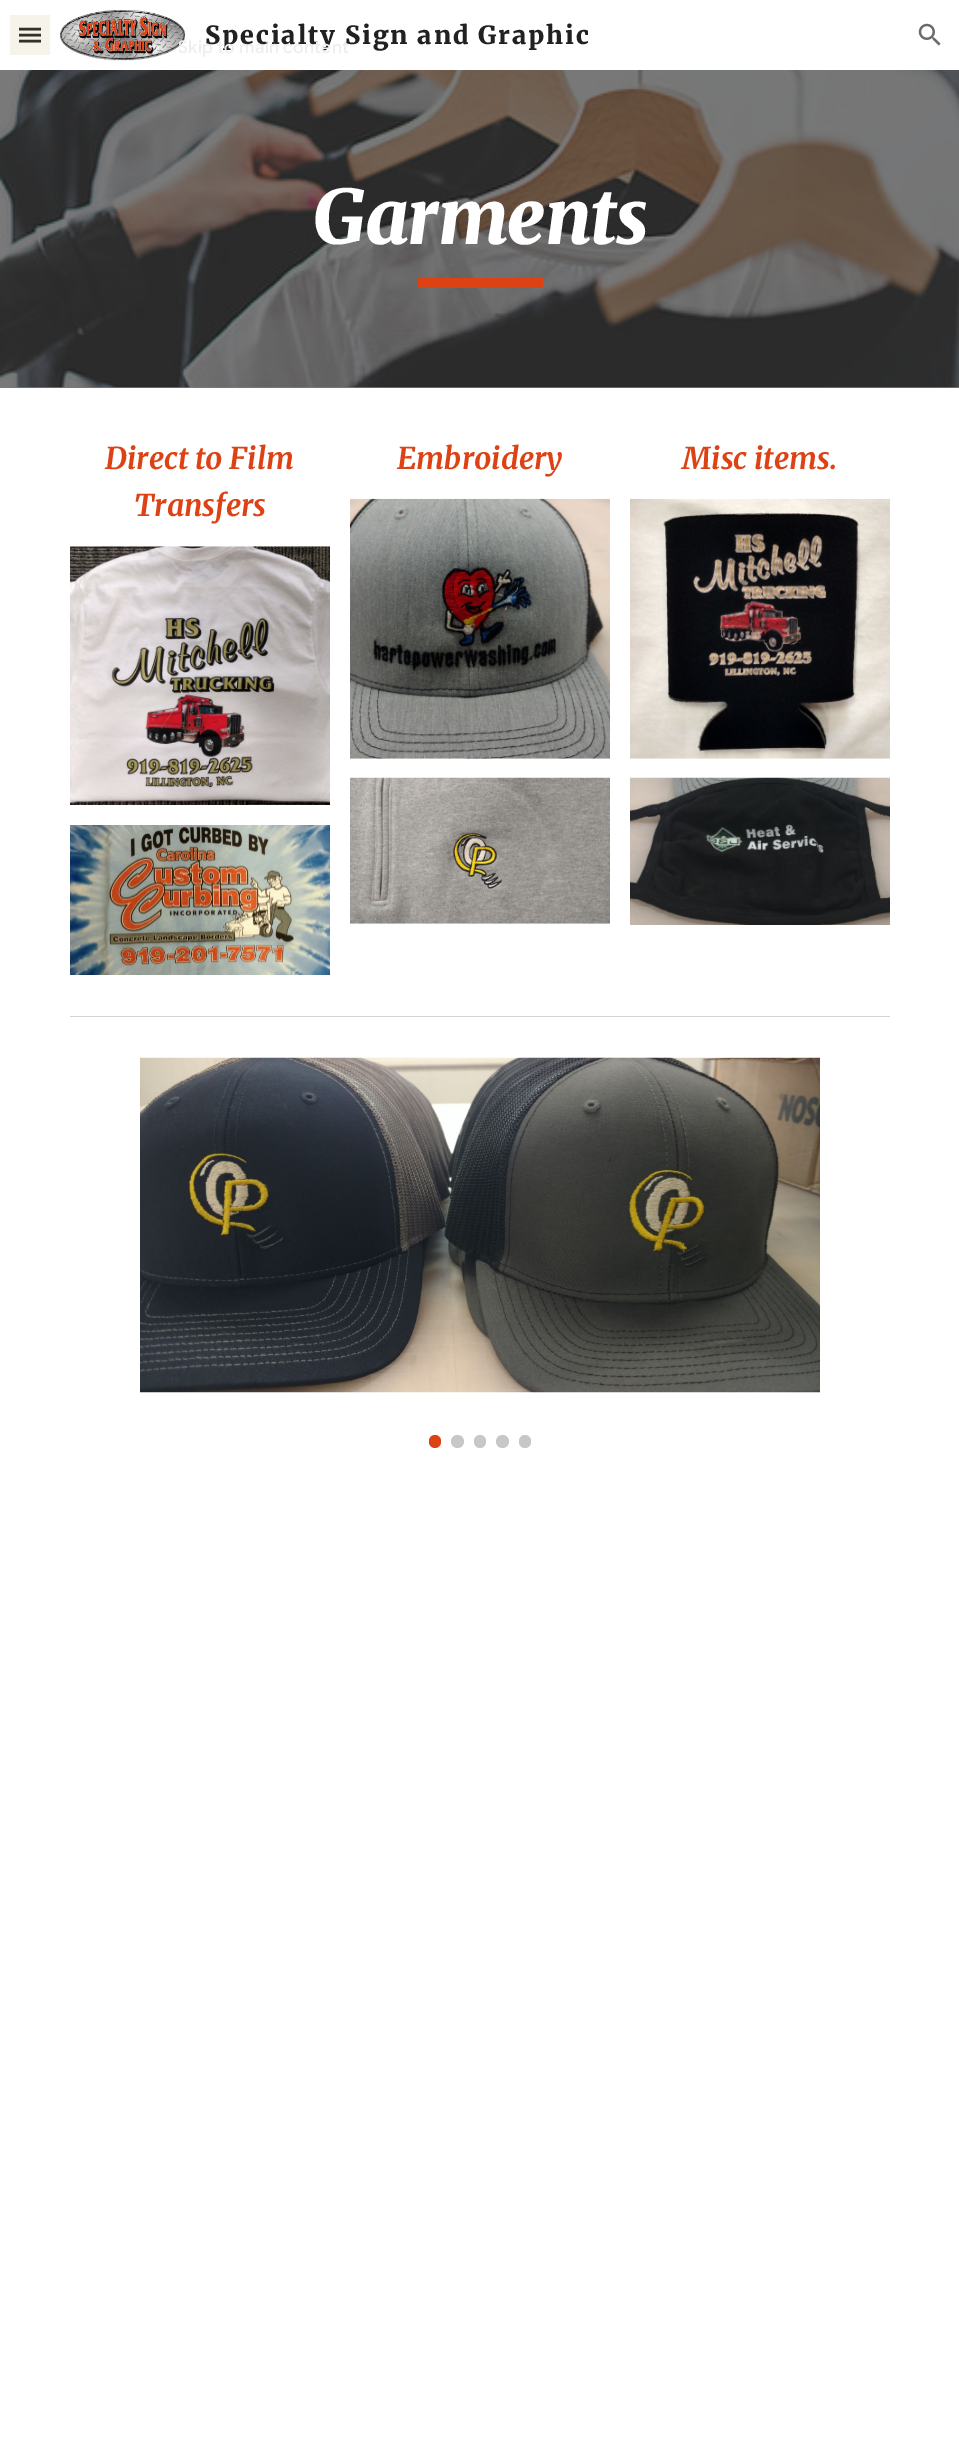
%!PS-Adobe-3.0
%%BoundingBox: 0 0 959 2442
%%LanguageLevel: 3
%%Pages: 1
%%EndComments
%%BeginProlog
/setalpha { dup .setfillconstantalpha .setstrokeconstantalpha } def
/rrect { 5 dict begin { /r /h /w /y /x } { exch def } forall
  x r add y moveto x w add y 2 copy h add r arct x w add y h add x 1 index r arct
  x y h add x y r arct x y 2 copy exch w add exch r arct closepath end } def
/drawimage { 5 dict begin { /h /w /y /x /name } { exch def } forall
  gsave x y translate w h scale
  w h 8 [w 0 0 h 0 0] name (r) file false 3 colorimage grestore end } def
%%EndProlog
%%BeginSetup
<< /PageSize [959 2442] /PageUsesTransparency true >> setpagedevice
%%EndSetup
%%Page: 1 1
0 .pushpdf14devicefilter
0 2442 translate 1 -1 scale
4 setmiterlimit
1 setgray
0 0 959 2442 rectfill
0.478 setgray
0 387 959 1 rectfill
0.129 setgray
2.5 setlinewidth
newpath 19 29 moveto 41 29 lineto 19 35 moveto 41 35 lineto 19 41 moveto 41 41 lineto stroke
0.12 setalpha
0.718 0.6 0.318 setrgbcolor
10 15 40 40 rectfill
1 setalpha
(images/1.raw) 60 10 125 51 drawimage
(images/2.raw) 918 23 23 23 drawimage
(images/3.raw) 0 70 959 318 drawimage
0.867 0.259 0.078 setrgbcolor
418 278 125 10 rectfill
(images/4.raw) 70 546 260 259 drawimage
(images/5.raw) 70 825 260 150 drawimage
(images/6.raw) 350 498 260 261 drawimage
(images/7.raw) 350 777 260 147 drawimage
(images/8.raw) 630 498 260 261 drawimage
(images/9.raw) 630 777 260 148 drawimage
0.827 setgray
70 1016 820 1 rectfill
(images/10.raw) 140 1057 680 336 drawimage
0.867 0.259 0.078 setrgbcolor
429 1435 12 13 6 rrect fill
0.78 setgray
newpath 457.5 1441.5 6.5 0 360 arc closepath fill
474 1435 12 13 6 rrect fill
newpath 502.5 1441.5 6.5 0 360 arc closepath fill
519 1435 12 13 6 rrect fill
/Merriweather-Black [25 0 0 -25 0 0] selectfont
0.129 setgray
205 44 moveto 1.9 0 (Specialty Sign and Graphic) ashow
/Merriweather-BlackItalic [75 0 0 -75 0 0] selectfont
1 setgray
313 244 moveto -1 0 (Garments) ashow
/Merriweather-BoldItalic [30 0 0 -30 0 0] selectfont
0.867 0.259 0.078 setrgbcolor
105 469 moveto (Direct to Film) show
134 516 moveto (Transfers) show
397 469 moveto (Embroidery) show
682 469 moveto (Misc items.) show
/GoogleSans-Medium [17.5 0 0 -17.5 0 0] selectfont
0.933 setgray
178 53 moveto 0.2 0 (Skip to main content) ashow
.poppdf14devicefilter showpage
%%EOF
